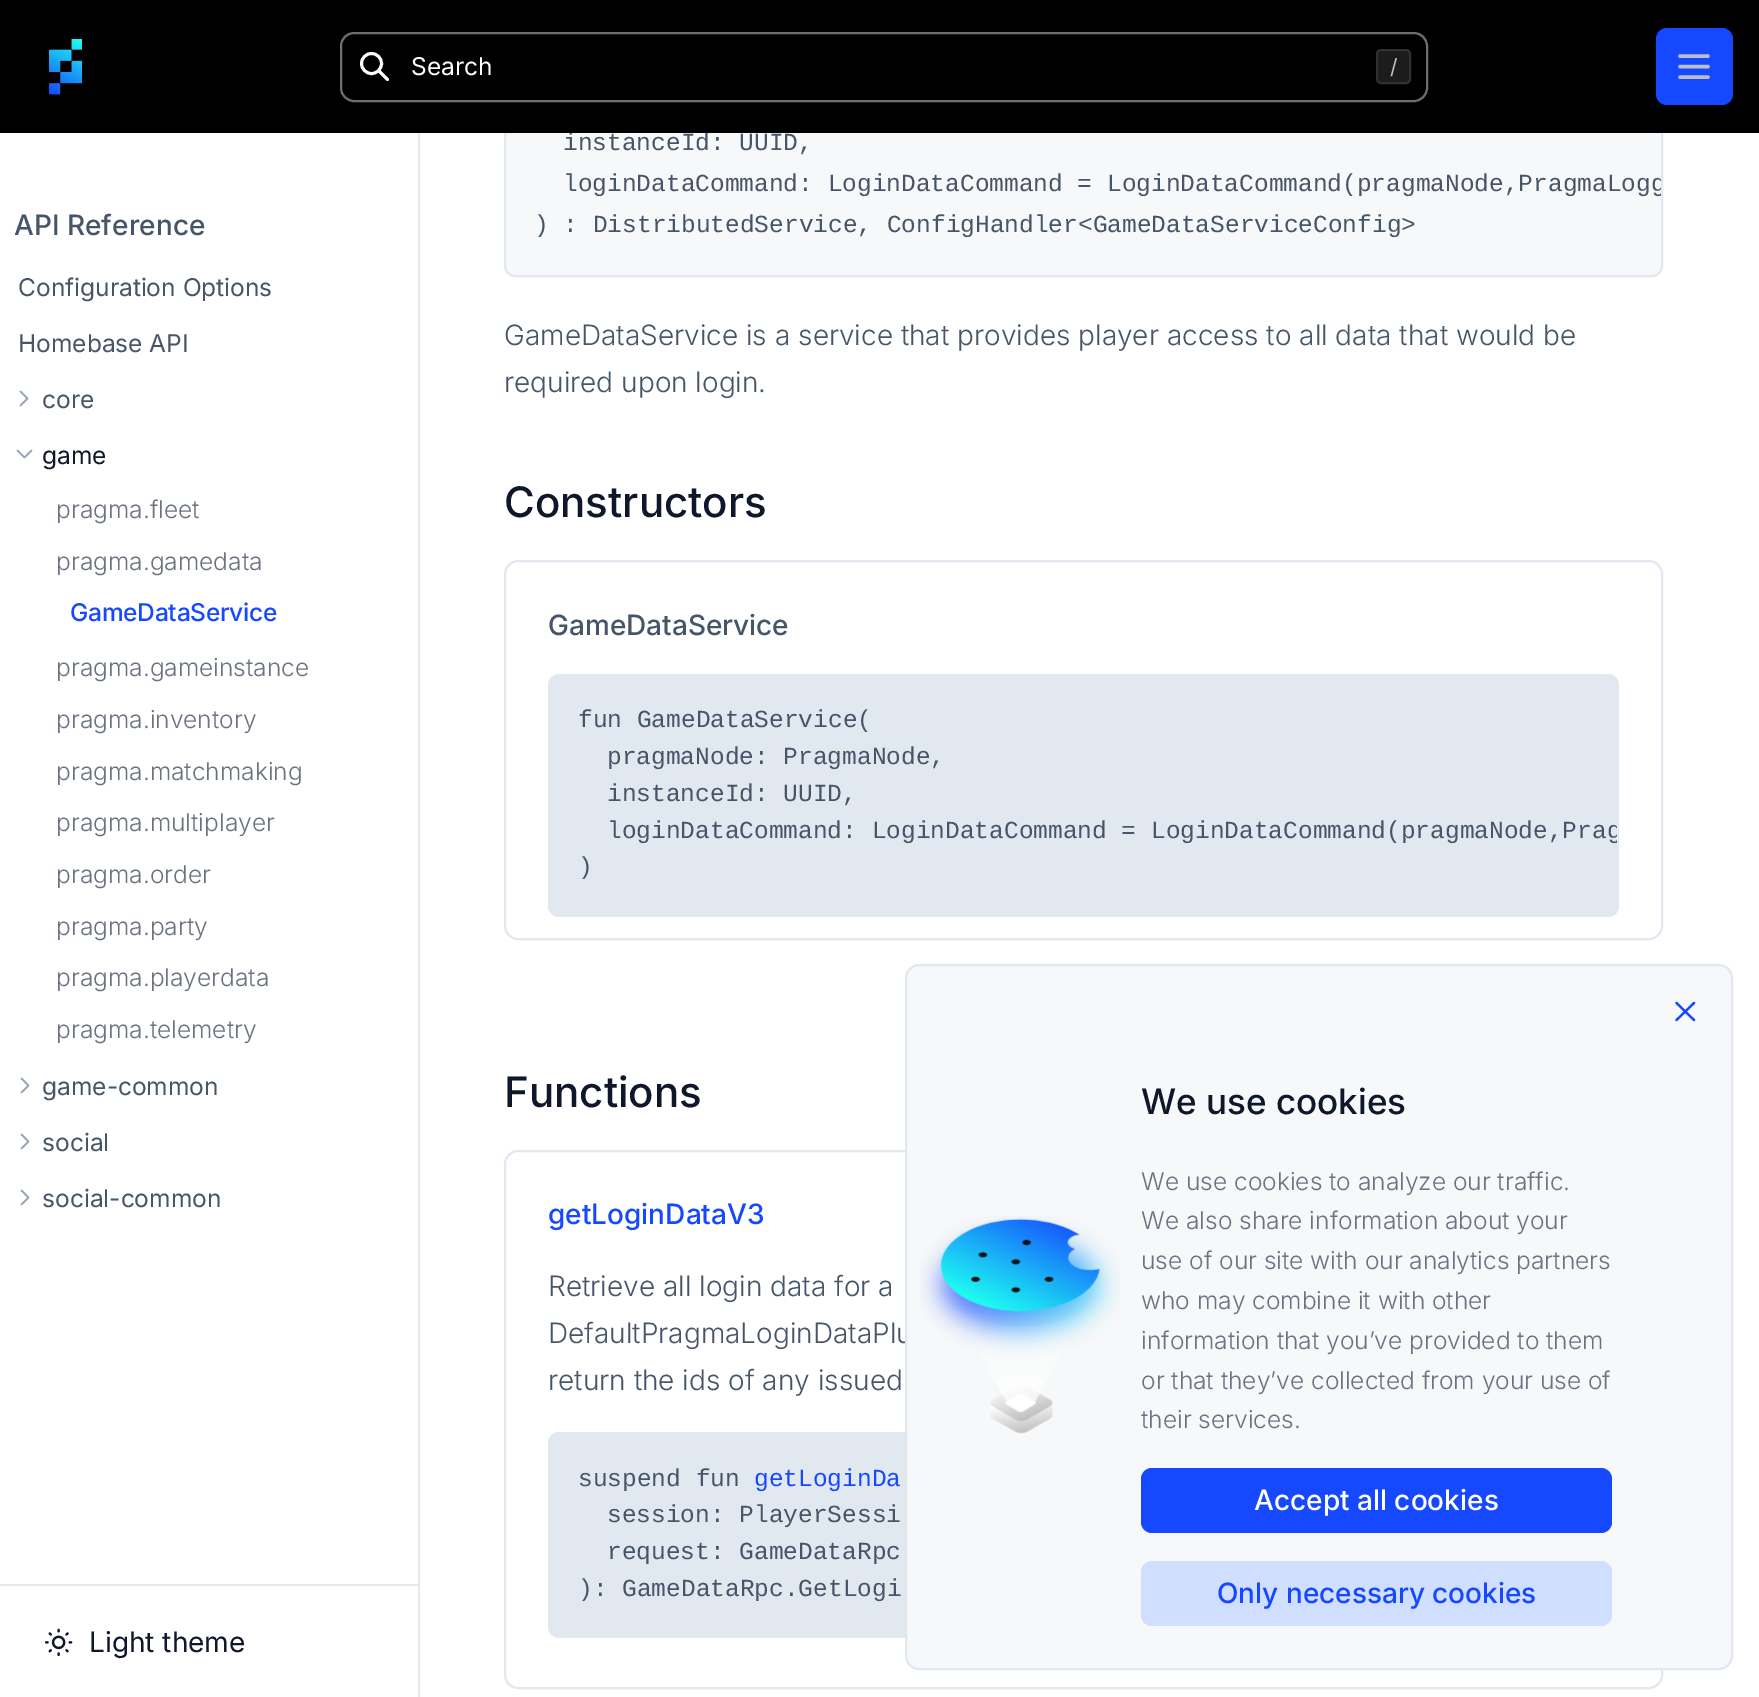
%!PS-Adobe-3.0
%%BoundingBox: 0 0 1759 1697
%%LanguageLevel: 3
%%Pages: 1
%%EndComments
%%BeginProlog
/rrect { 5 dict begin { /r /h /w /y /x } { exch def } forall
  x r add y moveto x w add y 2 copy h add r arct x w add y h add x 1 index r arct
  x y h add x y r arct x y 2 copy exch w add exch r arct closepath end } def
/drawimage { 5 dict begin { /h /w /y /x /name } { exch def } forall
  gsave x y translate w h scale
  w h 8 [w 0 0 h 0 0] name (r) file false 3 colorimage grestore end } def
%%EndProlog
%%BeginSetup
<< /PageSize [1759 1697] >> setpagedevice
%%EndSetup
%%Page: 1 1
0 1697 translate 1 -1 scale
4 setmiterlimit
1 setgray
0 0 1759 1697 rectfill
0.886 0.91 0.941 setrgbcolor
418 133 2 1564 rectfill
0.58 0.639 0.722 setrgbcolor
1.7 setlinewidth
1 setlinecap
1 setlinejoin
newpath 20.5 391.5 moveto 27.5 398.5 lineto 20.5 405.5 lineto stroke
newpath 31.5 450.5 moveto 24.5 457.5 lineto 17.5 450.5 lineto stroke
newpath 21.5 1078.5 moveto 28.5 1085.5 lineto 21.5 1092.5 lineto stroke
newpath 21.5 1134.5 moveto 28.5 1141.5 lineto 21.5 1148.5 lineto stroke
newpath 21.5 1190.5 moveto 28.5 1197.5 lineto 21.5 1204.5 lineto stroke
0.886 0.91 0.941 setrgbcolor
0 1584 420 2 rectfill
(images/2.raw) 44 1628 29 29 drawimage
0.965 0.973 0.976 setrgbcolor
505 13 1157 263 10 rrect gsave fill grestore
0.886 0.91 0.941 setrgbcolor
2 setlinewidth
0 setlinecap
0 setlinejoin
stroke
505 561 1157 378 13 rrect stroke
newpath 559 674 moveto 1608 674 lineto 1614 674 1619 679 1619 685 curveto 1619 906 lineto 1619 912 1614 917 1608 917 curveto 559 917 lineto 553 917 548 912 548 906 curveto 548 685 lineto 548 679 553 674 559 674 curveto closepath fill
505 1151 1157 537 13 rrect stroke
newpath 559 1432 moveto 1608 1432 lineto 1614 1432 1619 1437 1619 1443 curveto 1619 1627 lineto 1619 1633 1614 1638 1608 1638 curveto 559 1638 lineto 553 1638 548 1633 548 1627 curveto 548 1443 lineto 548 1437 553 1432 559 1432 curveto closepath fill
/Inter-Medium [28 0 0 -28 0 0] selectfont
0.278 0.333 0.412 setrgbcolor
14 235 moveto (API Reference) show
/Inter-Regular [24.5 0 0 -24.5 0 0] selectfont
18 296 moveto (Configuration Options) show
18 352 moveto (Homebase API) show
42 408 moveto (core) show
0.059 0.09 0.165 setrgbcolor
42 464 moveto (game) show
/Inter-Light [24.5 0 0 -24.5 0 0] selectfont
0.42 0.447 0.502 setrgbcolor
56 518 moveto (pragma.fleet) show
56 570 moveto (pragma.gamedata) show
/Inter-Medium [24.5 0 0 -24.5 0 0] selectfont
0.082 0.282 1 setrgbcolor
70 621 moveto -0.25 0 (GameDataService) ashow
/Inter-Light [24.5 0 0 -24.5 0 0] selectfont
0.42 0.447 0.502 setrgbcolor
56 676 moveto (pragma.gameinstance) show
56 728 moveto (pragma.inventory) show
56 780 moveto (pragma.matchmaking) show
56 831 moveto (pragma.multiplayer) show
56 883 moveto (pragma.order) show
56 935 moveto (pragma.party) show
56 986 moveto (pragma.playerdata) show
56 1038 moveto (pragma.telemetry) show
/Inter-Regular [24.5 0 0 -24.5 0 0] selectfont
0.278 0.333 0.412 setrgbcolor
42 1095 moveto (game-common) show
42 1151 moveto (social) show
42 1207 moveto (social-common) show
/Inter-Regular [28 0 0 -28 0 0] selectfont
0.059 0.09 0.165 setrgbcolor
89 1652 moveto (Light theme) show
/LiberationMono-Regular [24.5 0 0 -24.5 0 0] selectfont
0.278 0.333 0.412 setrgbcolor
563 150 moveto (instanceId: UUID,) show
0 setgray
0 0 1759 133 rectfill
0.11 setgray
1377 50 33 33 4 rrect gsave fill grestore
0.184 0.192 0.196 setrgbcolor
stroke
0.424 0.439 0.447 setrgbcolor
341 33 1086 68 13 rrect stroke
1 setgray
2.9 setlinewidth
newpath 371.5 63.5 10 0 360 arc closepath stroke
1 setlinecap
1 setlinejoin
newpath 387.5 79.5 moveto 379 71 lineto stroke
/Inter-Regular [24.5 0 0 -24.5 0 0] selectfont
411 75 moveto (Search) show
/Inter-Regular [21 0 0 -21 0 0] selectfont
0.729 0.749 0.78 setrgbcolor
1390 74 moveto (/) show
0.082 0.282 1 setrgbcolor
1656 28 77 77 11 rrect fill
0.729 0.749 0.78 setrgbcolor
3.5 setlinewidth
newpath 1680 56 moveto 1708 56 lineto 1680 66.5 moveto 1708 66.5 lineto 1680 77 moveto 1708 77 lineto stroke
(images/1.raw) 49 39 33 56 drawimage
gsave
506 14 1155 261 9 rrect clip newpath
/LiberationMono-Regular [24.5 0 0 -24.5 0 0] selectfont
0.278 0.333 0.412 setrgbcolor
563 191 moveto (loginDataCommand: LoginDataCommand = LoginDataCommand\(pragmaNode,PragmaLogg) show
grestore
/LiberationMono-Regular [24.5 0 0 -24.5 0 0] selectfont
0.278 0.333 0.412 setrgbcolor
534 232 moveto (\) : DistributedService, ConfigHandler<GameDataServiceConfig>) show
/Inter-Light [28 0 0 -28 0 0] selectfont
504 345 moveto (GameDataService is a service that provides player access to all data that would be) show
504 392 moveto (required upon login.) show
/Inter-Medium [42 0 0 -42 0 0] selectfont
0.059 0.09 0.165 setrgbcolor
504 517 moveto (Constructors) show
/Inter-Medium [28 0 0 -28 0 0] selectfont
0.278 0.333 0.412 setrgbcolor
548 635 moveto (GameDataService) show
/LiberationMono-Regular [24.5 0 0 -24.5 0 0] selectfont
578 727 moveto (fun GameDataService\() show
607 764 moveto (pragmaNode: PragmaNode,) show
607 801 moveto (instanceId: UUID,) show
gsave
550 676 1067 239 9 rrect clip newpath
607 838 moveto (loginDataCommand: LoginDataCommand = LoginDataCommand\(pragmaNode,Prag) show
grestore
578 874 moveto (\)) show
/Inter-Medium [42 0 0 -42 0 0] selectfont
0.059 0.09 0.165 setrgbcolor
504 1107 moveto (Functions) show
/Inter-Medium [28 0 0 -28 0 0] selectfont
0.082 0.282 1 setrgbcolor
548 1224 moveto (getLoginDataV3) show
/Inter-Light [28 0 0 -28 0 0] selectfont
0.278 0.333 0.412 setrgbcolor
548 1296 moveto (Retrieve all login data for a) show
548 1343 moveto (DefaultPragmaLoginDataPlu) show
548 1390 moveto (return the ids of any issued) show
/LiberationMono-Regular [24.5 0 0 -24.5 0 0] selectfont
578 1486 moveto (suspend fun) show
0.082 0.282 1 setrgbcolor
754 1486 moveto (getLoginDa) show
0.278 0.333 0.412 setrgbcolor
607 1522 moveto (session: PlayerSessi) show
607 1559 moveto (request: GameDataRpc) show
578 1596 moveto (\): GameDataRpc.GetLogi) show
0.965 0.973 0.976 setrgbcolor
906 965 826 704 13 rrect gsave fill grestore
0.886 0.91 0.941 setrgbcolor
2 setlinewidth
0 setlinecap
0 setlinejoin
stroke
0.082 0.282 1 setrgbcolor
2.2 setlinewidth
1 setlinecap
1 setlinejoin
newpath 1694 1003 moveto 1676.5 1020 lineto 1676.5 1003 moveto 1694 1020 lineto stroke
(images/3.raw) 920 1216 200 218 drawimage
/Inter-Medium [35 0 0 -35 0 0] selectfont
0.059 0.09 0.165 setrgbcolor
1141 1114 moveto (We use cookies) show
/Inter-Light [24.5 0 0 -24.5 0 0] selectfont
0.42 0.447 0.502 setrgbcolor
1141 1190 moveto (We use cookies to analyze our traffic.) show
1141 1229 moveto (We also share information about your) show
1141 1269 moveto (use of our site with our analytics partners) show
1141 1309 moveto (who may combine it with other) show
1141 1349 moveto (information that you’ve provided to them) show
1141 1389 moveto (or that they’ve collected from your use of) show
1141 1428 moveto (their services.) show
0.082 0.282 1 setrgbcolor
1141 1468 471 65 11 rrect fill
/Inter-Medium [28 0 0 -28 0 0] selectfont
1 setgray
1254 1510 moveto (Accept all cookies) show
0.816 0.871 1 setrgbcolor
1141 1561 471 65 11 rrect fill
0.082 0.282 1 setrgbcolor
1217 1603 moveto (Only necessary cookies) show
showpage
%%EOF
